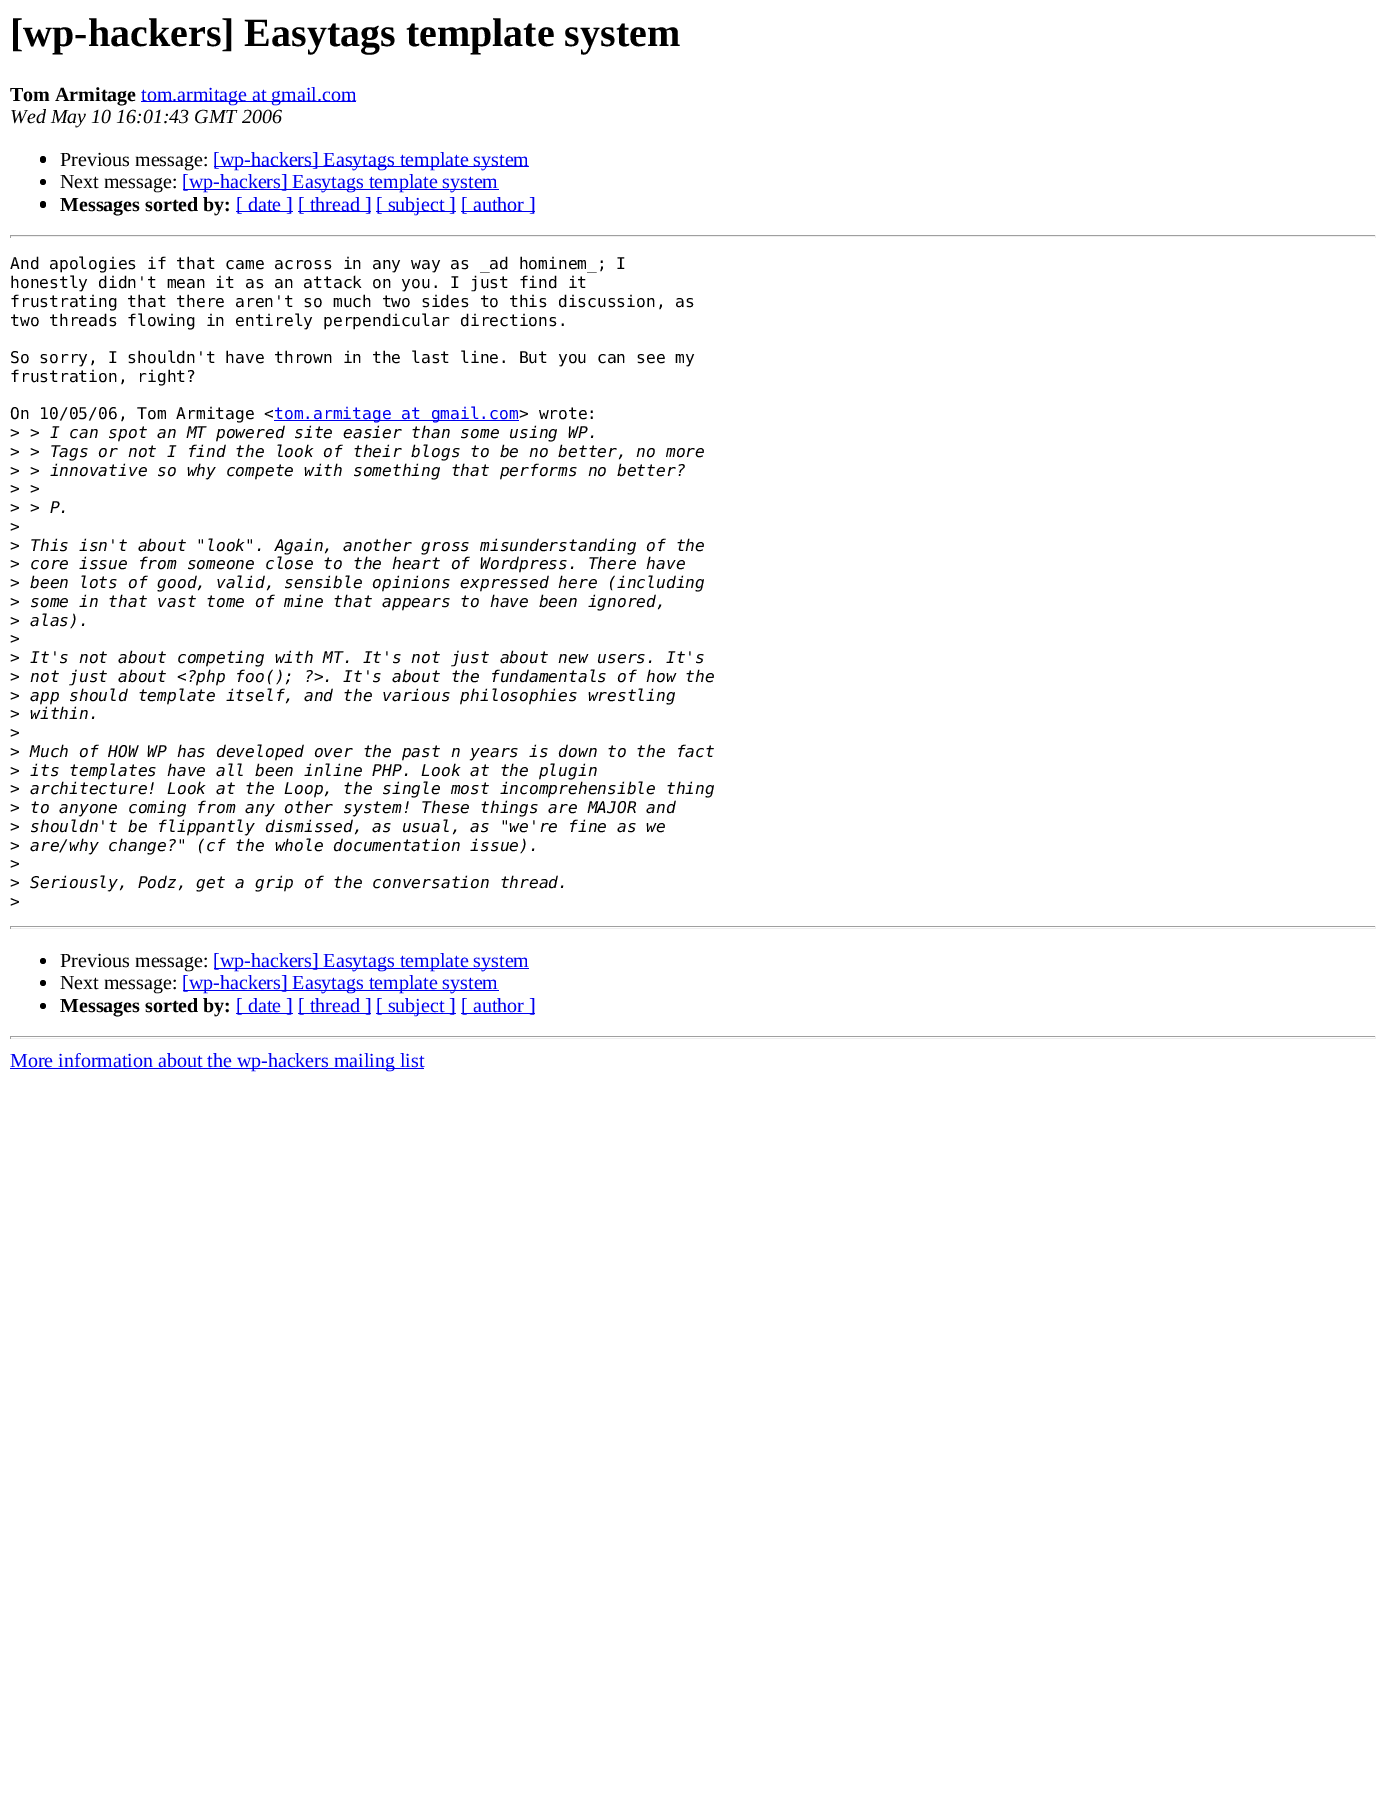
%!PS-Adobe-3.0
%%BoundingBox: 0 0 1386 1800
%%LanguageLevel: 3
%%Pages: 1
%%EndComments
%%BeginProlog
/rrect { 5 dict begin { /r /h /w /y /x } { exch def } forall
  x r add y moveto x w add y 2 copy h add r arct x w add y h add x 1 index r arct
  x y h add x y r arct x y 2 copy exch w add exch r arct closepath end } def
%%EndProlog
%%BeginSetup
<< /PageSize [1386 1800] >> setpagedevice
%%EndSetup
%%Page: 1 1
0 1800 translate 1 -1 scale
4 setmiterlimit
1 setgray
0 0 1386 1800 rectfill
0 0 0.933 setrgbcolor
141 101 215 1 rectfill
0 setgray
40 156 6 7 3 rrect fill
0 0 0.933 setrgbcolor
214 166 315 1 rectfill
0 setgray
newpath 43 182 3 0 360 arc closepath fill
0 0 0.933 setrgbcolor
183 189 316 1 rectfill
0 setgray
40 201 6 7 3 rrect fill
0 0 0.933 setrgbcolor
236 211 57 1 rectfill
298 211 73 1 rectfill
376 211 80 1 rectfill
461 211 74 1 rectfill
0.624 setgray
10 235 1366 1 rectfill
0.933 setgray
1375 235 1 3 rectfill
10 236 1366 1 rectfill
0.624 setgray
10 235 1 3 rectfill
0 0 0.933 setrgbcolor
274 420 245 1 rectfill
0.624 setgray
10 926 1366 1 rectfill
0.933 setgray
1375 926 1 3 rectfill
10 928 1366 1 rectfill
0.624 setgray
10 926 1 3 rectfill
0 setgray
newpath 43 961 3 0 360 arc closepath fill
0 0 0.933 setrgbcolor
214 968 315 1 rectfill
0 setgray
newpath 43 983 3 0 360 arc closepath fill
0 0 0.933 setrgbcolor
183 990 316 1 rectfill
0 setgray
newpath 43 1006 3 0 360 arc closepath fill
0 0 0.933 setrgbcolor
236 1013 57 1 rectfill
298 1013 73 1 rectfill
376 1013 80 1 rectfill
461 1013 74 1 rectfill
0.624 setgray
10 1036 1366 1 rectfill
0.933 setgray
1375 1036 1 3 rectfill
10 1038 1366 1 rectfill
0.624 setgray
10 1036 1 3 rectfill
0 0 0.933 setrgbcolor
10 1068 414 1 rectfill
/LiberationSerif-Bold [40 0 0 -40 0 0] selectfont
0 setgray
10 46 moveto ([wp-hackers] Easytags template system) show
/LiberationSerif-Bold [20 0 0 -20 0 0] selectfont
10 101 moveto (Tom Armitage) show
/LiberationSerif-Regular [20 0 0 -20 0 0] selectfont
0 0 0.933 setrgbcolor
141 101 moveto (tom.armitage at gmail.com) show
/LiberationSerif-Italic [20 0 0 -20 0 0] selectfont
0 setgray
10 123 moveto (Wed May 10 16:01:43 GMT 2006) show
/LiberationSerif-Regular [20 0 0 -20 0 0] selectfont
60 166 moveto (Previous message:) show
0 0 0.933 setrgbcolor
213 166 moveto ([wp-hackers] Easytags template system) show
0 setgray
60 188 moveto (Next message:) show
0 0 0.933 setrgbcolor
182 188 moveto ([wp-hackers] Easytags template system) show
/LiberationSerif-Bold [20 0 0 -20 0 0] selectfont
0 setgray
60 211 moveto (Messages sorted by:) show
/LiberationSerif-Regular [20 0 0 -20 0 0] selectfont
0 0 0.933 setrgbcolor
236 211 moveto ([ date ]) show
298 211 moveto ([ thread ]) show
376 211 moveto ([ subject ]) show
461 211 moveto ([ author ]) show
/DejaVuSansMono-Regular [16.25 0 0 -16.25 0 0] selectfont
0 setgray
10 269 moveto (And apologies if that came across in any way as _ad hominem_; I) show
10 288 moveto (honestly didn't mean it as an attack on you. I just find it) show
10 307 moveto (frustrating that there aren't so much two sides to this discussion, as) show
10 326 moveto (two threads flowing in entirely perpendicular directions.) show
10 363 moveto (So sorry, I shouldn't have thrown in the last line. But you can see my) show
10 382 moveto (frustration, right?) show
10 419 moveto (On 10/05/06, Tom Armitage <) show
0 0 0.933 setrgbcolor
274 419 moveto (tom.armitage at gmail.com) show
0 setgray
519 419 moveto (> wrote:) show
10 438 moveto (>) show
/DejaVuSansMono-Italic [16.25 0 0 -16.25 0 0] selectfont
30 438 moveto (> I can spot an MT powered site easier than some using WP.) show
/DejaVuSansMono-Regular [16.25 0 0 -16.25 0 0] selectfont
10 457 moveto (>) show
/DejaVuSansMono-Italic [16.25 0 0 -16.25 0 0] selectfont
30 457 moveto (> Tags or not I find the look of their blogs to be no better, no more) show
/DejaVuSansMono-Regular [16.25 0 0 -16.25 0 0] selectfont
10 476 moveto (>) show
/DejaVuSansMono-Italic [16.25 0 0 -16.25 0 0] selectfont
30 476 moveto (> innovative so why compete with something that performs no better?) show
/DejaVuSansMono-Regular [16.25 0 0 -16.25 0 0] selectfont
10 494 moveto (>) show
/DejaVuSansMono-Italic [16.25 0 0 -16.25 0 0] selectfont
30 494 moveto (>) show
/DejaVuSansMono-Regular [16.25 0 0 -16.25 0 0] selectfont
10 513 moveto (>) show
/DejaVuSansMono-Italic [16.25 0 0 -16.25 0 0] selectfont
30 513 moveto (> P.) show
/DejaVuSansMono-Regular [16.25 0 0 -16.25 0 0] selectfont
10 532 moveto (>) show
10 551 moveto (>) show
/DejaVuSansMono-Italic [16.25 0 0 -16.25 0 0] selectfont
30 551 moveto (This isn't about "look". Again, another gross misunderstanding of the) show
/DejaVuSansMono-Regular [16.25 0 0 -16.25 0 0] selectfont
10 569 moveto (>) show
/DejaVuSansMono-Italic [16.25 0 0 -16.25 0 0] selectfont
30 569 moveto (core issue from someone close to the heart of Wordpress. There have) show
/DejaVuSansMono-Regular [16.25 0 0 -16.25 0 0] selectfont
10 588 moveto (>) show
/DejaVuSansMono-Italic [16.25 0 0 -16.25 0 0] selectfont
30 588 moveto (been lots of good, valid, sensible opinions expressed here \(including) show
/DejaVuSansMono-Regular [16.25 0 0 -16.25 0 0] selectfont
10 607 moveto (>) show
/DejaVuSansMono-Italic [16.25 0 0 -16.25 0 0] selectfont
30 607 moveto (some in that vast tome of mine that appears to have been ignored,) show
/DejaVuSansMono-Regular [16.25 0 0 -16.25 0 0] selectfont
10 626 moveto (>) show
/DejaVuSansMono-Italic [16.25 0 0 -16.25 0 0] selectfont
30 626 moveto (alas\).) show
/DejaVuSansMono-Regular [16.25 0 0 -16.25 0 0] selectfont
10 644 moveto (>) show
10 663 moveto (>) show
/DejaVuSansMono-Italic [16.25 0 0 -16.25 0 0] selectfont
30 663 moveto (It's not about competing with MT. It's not just about new users. It's) show
/DejaVuSansMono-Regular [16.25 0 0 -16.25 0 0] selectfont
10 682 moveto (>) show
/DejaVuSansMono-Italic [16.25 0 0 -16.25 0 0] selectfont
30 682 moveto (not just about <?php foo\(\); ?>. It's about the fundamentals of how the) show
/DejaVuSansMono-Regular [16.25 0 0 -16.25 0 0] selectfont
10 701 moveto (>) show
/DejaVuSansMono-Italic [16.25 0 0 -16.25 0 0] selectfont
30 701 moveto (app should template itself, and the various philosophies wrestling) show
/DejaVuSansMono-Regular [16.25 0 0 -16.25 0 0] selectfont
10 719 moveto (>) show
/DejaVuSansMono-Italic [16.25 0 0 -16.25 0 0] selectfont
30 719 moveto (within.) show
/DejaVuSansMono-Regular [16.25 0 0 -16.25 0 0] selectfont
10 738 moveto (>) show
10 757 moveto (>) show
/DejaVuSansMono-Italic [16.25 0 0 -16.25 0 0] selectfont
30 757 moveto (Much of HOW WP has developed over the past n years is down to the fact) show
/DejaVuSansMono-Regular [16.25 0 0 -16.25 0 0] selectfont
10 776 moveto (>) show
/DejaVuSansMono-Italic [16.25 0 0 -16.25 0 0] selectfont
30 776 moveto (its templates have all been inline PHP. Look at the plugin) show
/DejaVuSansMono-Regular [16.25 0 0 -16.25 0 0] selectfont
10 794 moveto (>) show
/DejaVuSansMono-Italic [16.25 0 0 -16.25 0 0] selectfont
30 794 moveto (architecture! Look at the Loop, the single most incomprehensible thing) show
/DejaVuSansMono-Regular [16.25 0 0 -16.25 0 0] selectfont
10 813 moveto (>) show
/DejaVuSansMono-Italic [16.25 0 0 -16.25 0 0] selectfont
30 813 moveto (to anyone coming from any other system! These things are MAJOR and) show
/DejaVuSansMono-Regular [16.25 0 0 -16.25 0 0] selectfont
10 832 moveto (>) show
/DejaVuSansMono-Italic [16.25 0 0 -16.25 0 0] selectfont
30 832 moveto (shouldn't be flippantly dismissed, as usual, as "we're fine as we) show
/DejaVuSansMono-Regular [16.25 0 0 -16.25 0 0] selectfont
10 851 moveto (>) show
/DejaVuSansMono-Italic [16.25 0 0 -16.25 0 0] selectfont
30 851 moveto (are/why change?" \(cf the whole documentation issue\).) show
/DejaVuSansMono-Regular [16.25 0 0 -16.25 0 0] selectfont
10 869 moveto (>) show
10 888 moveto (>) show
/DejaVuSansMono-Italic [16.25 0 0 -16.25 0 0] selectfont
30 888 moveto (Seriously, Podz, get a grip of the conversation thread.) show
/DejaVuSansMono-Regular [16.25 0 0 -16.25 0 0] selectfont
10 907 moveto (>) show
/LiberationSerif-Regular [20 0 0 -20 0 0] selectfont
60 967 moveto (Previous message:) show
0 0 0.933 setrgbcolor
213 967 moveto ([wp-hackers] Easytags template system) show
0 setgray
60 989 moveto (Next message:) show
0 0 0.933 setrgbcolor
182 989 moveto ([wp-hackers] Easytags template system) show
/LiberationSerif-Bold [20 0 0 -20 0 0] selectfont
0 setgray
60 1012 moveto (Messages sorted by:) show
/LiberationSerif-Regular [20 0 0 -20 0 0] selectfont
0 0 0.933 setrgbcolor
236 1012 moveto ([ date ]) show
298 1012 moveto ([ thread ]) show
376 1012 moveto ([ subject ]) show
461 1012 moveto ([ author ]) show
10 1067 moveto (More information about the wp-hackers mailing list) show
showpage
%%EOF
